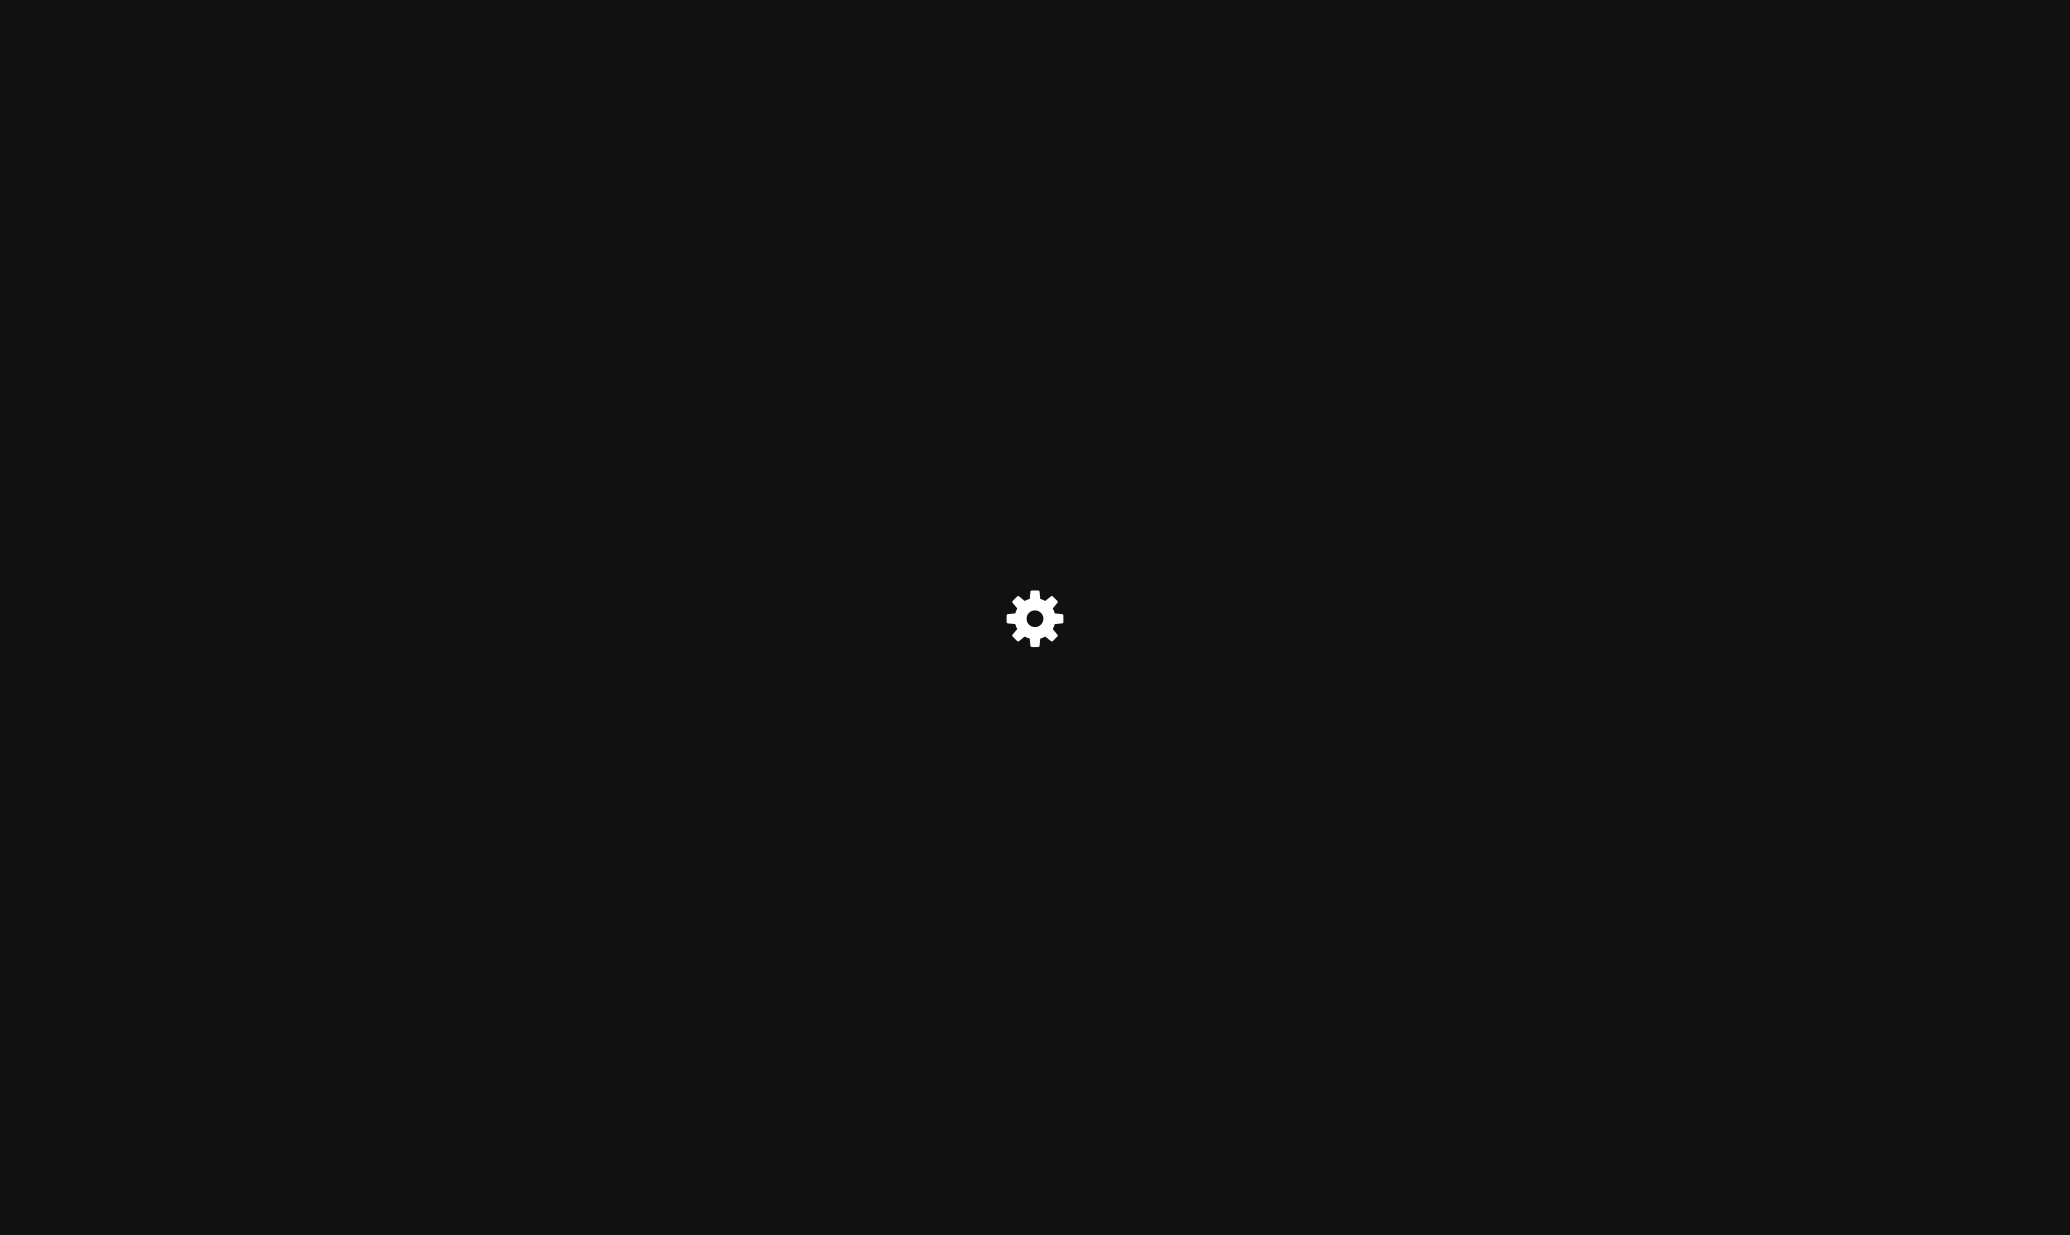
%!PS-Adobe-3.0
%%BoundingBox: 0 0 2070 1235
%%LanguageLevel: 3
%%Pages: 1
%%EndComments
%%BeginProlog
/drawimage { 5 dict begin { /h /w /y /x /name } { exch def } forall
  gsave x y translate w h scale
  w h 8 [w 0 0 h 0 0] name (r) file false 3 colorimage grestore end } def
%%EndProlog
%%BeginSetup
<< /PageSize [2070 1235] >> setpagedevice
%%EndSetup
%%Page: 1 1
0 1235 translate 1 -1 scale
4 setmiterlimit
0.067 setgray
0 0 2070 1235 rectfill
(images/1.raw) 1006 590 58 58 drawimage
showpage
%%EOF
